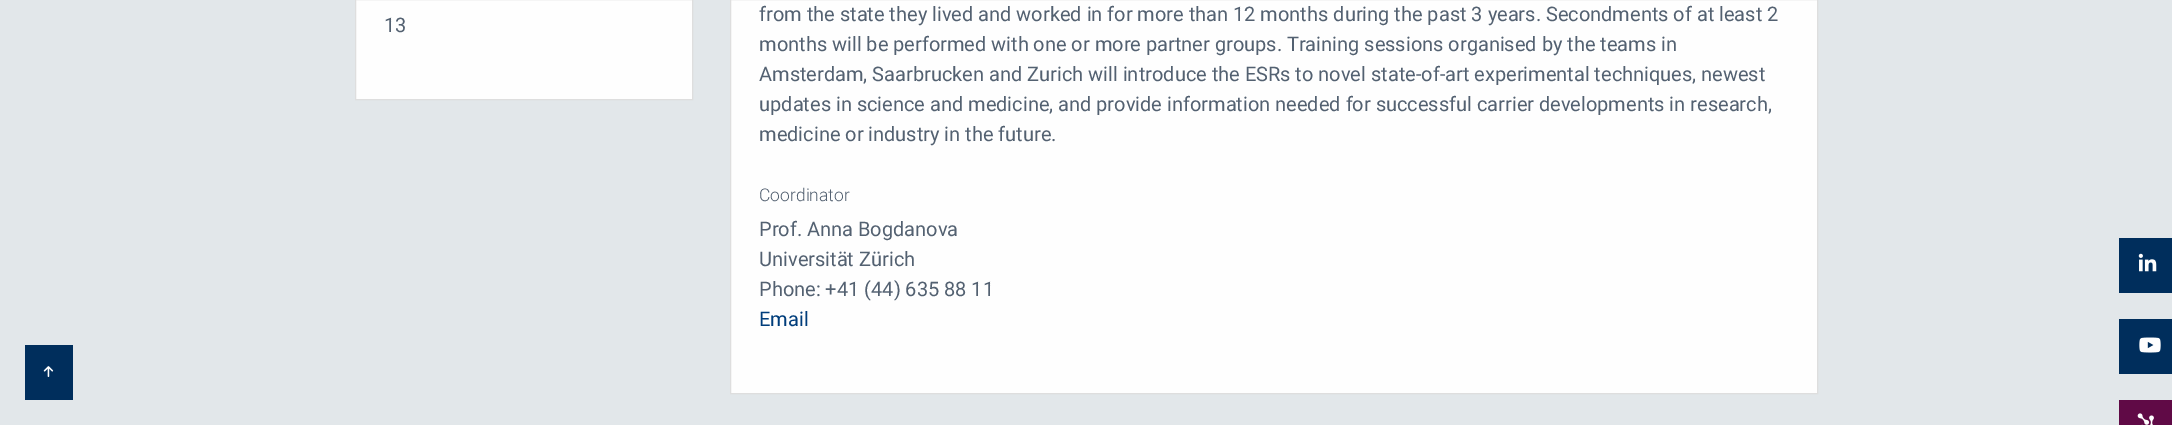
%!PS-Adobe-3.0
%%BoundingBox: 0 0 2172 425
%%LanguageLevel: 3
%%Pages: 1
%%EndComments
%%BeginProlog
/drawimage { 5 dict begin { /h /w /y /x /name } { exch def } forall
  gsave x y translate w h scale
  w h 8 [w 0 0 h 0 0] name (r) file false 3 colorimage grestore end } def
%%EndProlog
%%BeginSetup
<< /PageSize [2172 425] >> setpagedevice
%%EndSetup
%%Page: 1 1
0 425 translate 1 -1 scale
4 setmiterlimit
0.886 0.906 0.918 setrgbcolor
0 0 2172 425 rectfill
0 0.18 0.361 setrgbcolor
25 345 48 55 rectfill
(images/1.raw) 43 366 11 11 drawimage
0.996 setgray
newpath 355.5 -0.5 moveto 692.5 -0.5 lineto 692.5 99.5 lineto 355.5 99.5 lineto closepath gsave fill grestore
0.871 setgray
stroke
0.996 setgray
newpath 730.5 -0.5 moveto 1817.5 -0.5 lineto 1817.5 393.5 lineto 730.5 393.5 lineto closepath gsave fill grestore
0.871 setgray
stroke
0 0.18 0.361 setrgbcolor
2119 238 53 55 rectfill
(images/2.raw) 2138 253 19 19 drawimage
2119 319 53 55 rectfill
(images/3.raw) 2139 337 22 16 drawimage
0.376 0.039 0.275 setrgbcolor
2119 400 53 25 rectfill
(images/4.raw) 2137 413 17 12 drawimage
/Roboto-Regular [20 0 0 -20 0 0] selectfont
0.325 0.38 0.443 setrgbcolor
384 32 moveto (13) show
759 21 moveto (from the state they lived and worked in for more than 12 months during the past 3 years. Secondments of at least 2) show
759 51 moveto (months will be performed with one or more partner groups. Training sessions organised by the teams in) show
759 81 moveto (Amsterdam, Saarbrucken and Zurich will introduce the ESRs to novel state-of-art experimental techniques, newest) show
759 111 moveto (updates in science and medicine, and provide information needed for successful carrier developments in research,) show
759 141 moveto (medicine or industry in the future.) show
/Roboto-Light [17.5 0 0 -17.5 0 0] selectfont
759 201 moveto (Coordinator) show
/Roboto-Regular [20 0 0 -20 0 0] selectfont
759 236 moveto (Prof. Anna Bogdanova) show
759 266 moveto (Universität Zürich) show
759 296 moveto (Phone: +41 \(44\) 635 88 11) show
0 0.239 0.482 setrgbcolor
759 326 moveto (Email) show
showpage
%%EOF
